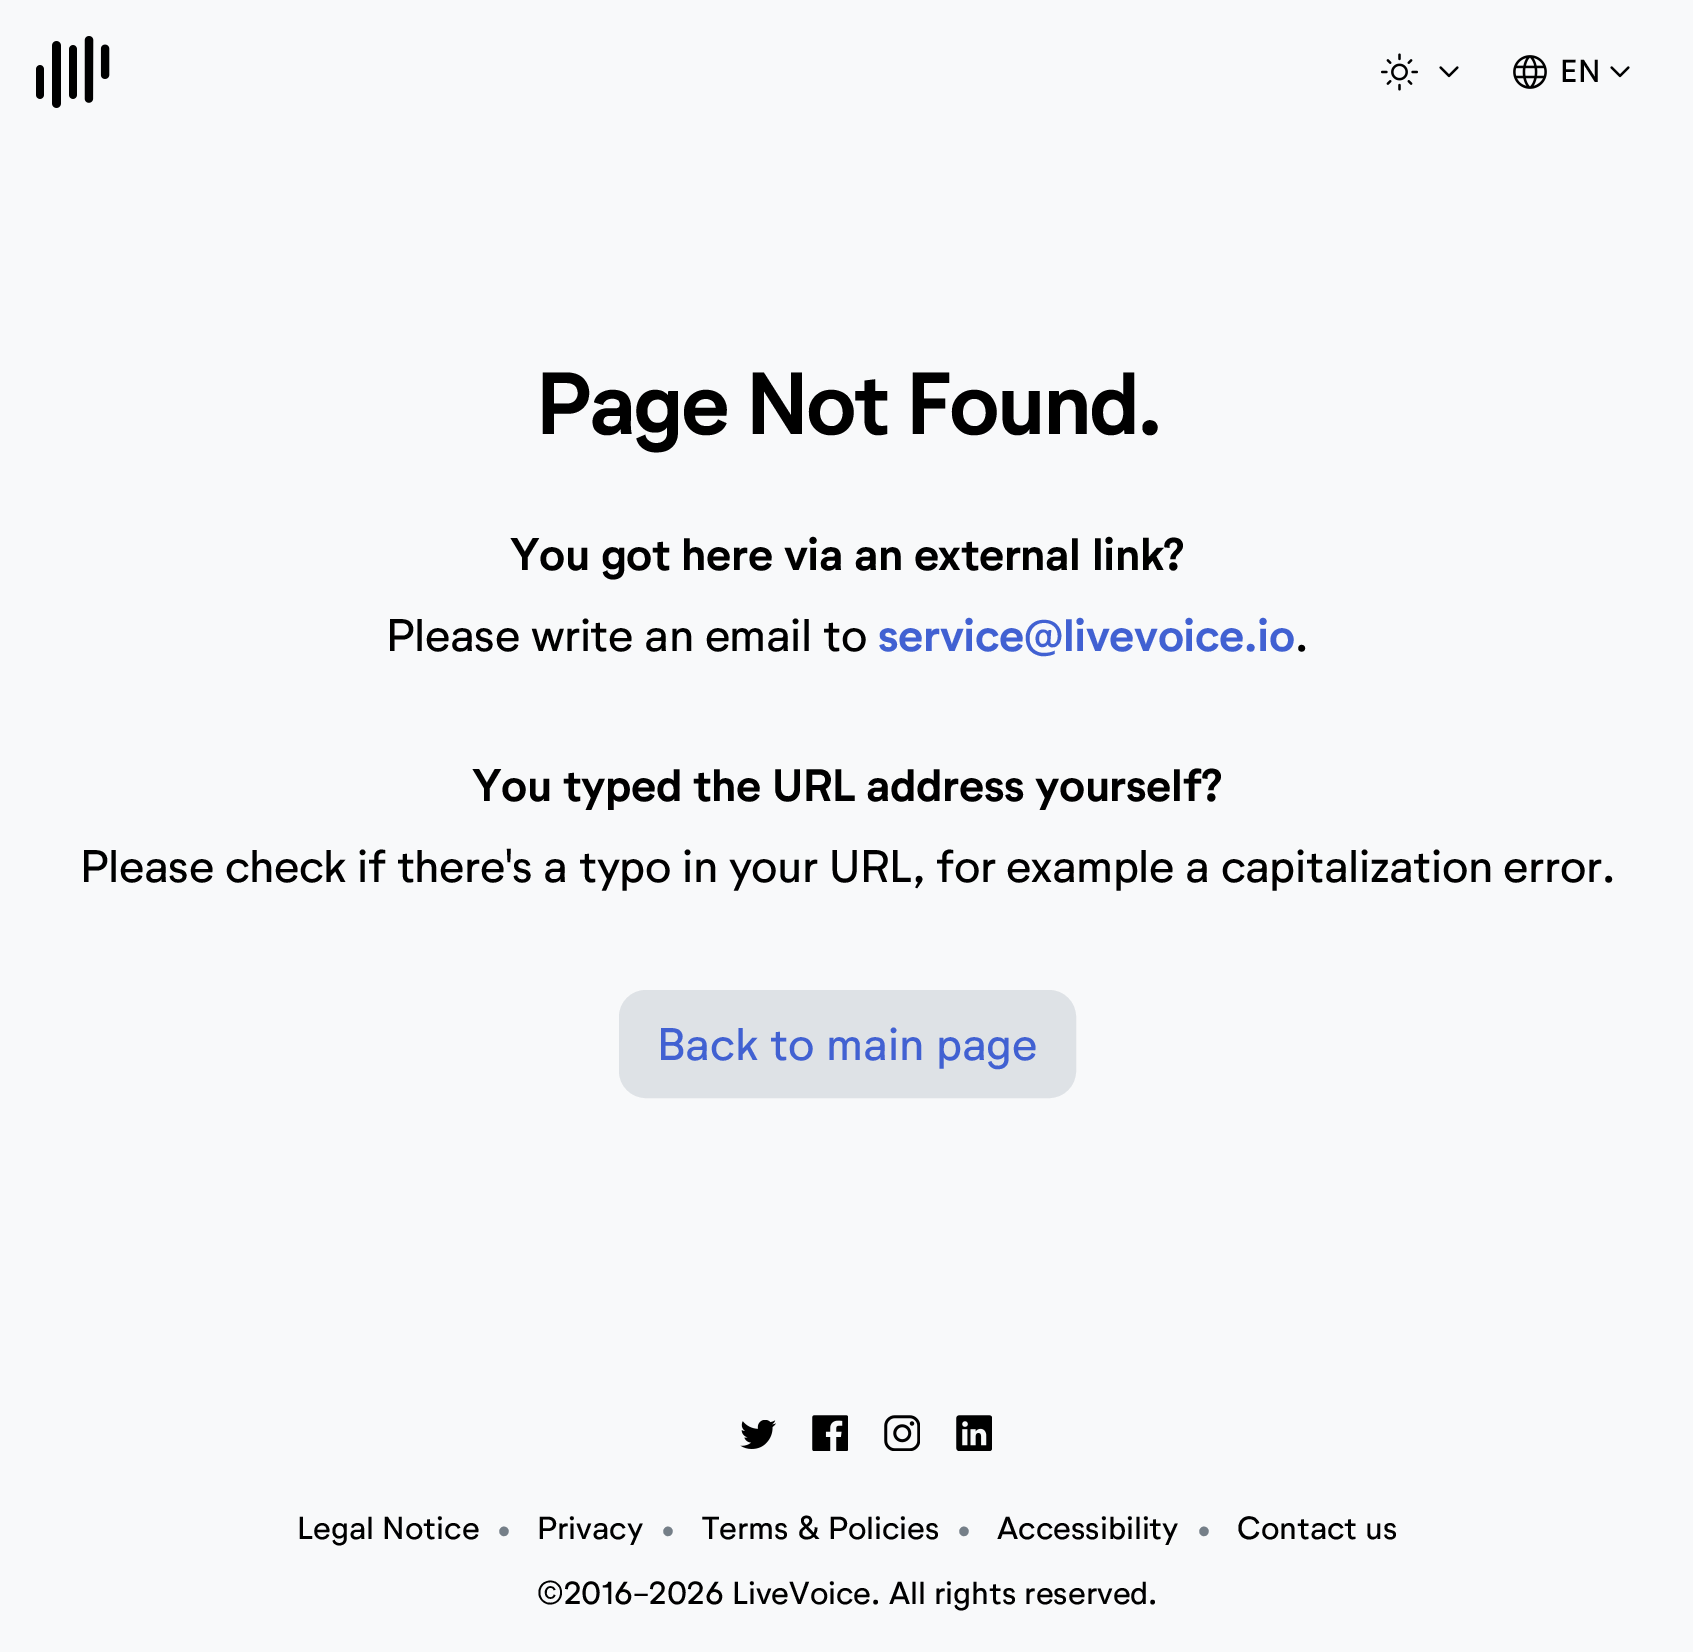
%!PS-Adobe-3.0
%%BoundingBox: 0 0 1693 1652
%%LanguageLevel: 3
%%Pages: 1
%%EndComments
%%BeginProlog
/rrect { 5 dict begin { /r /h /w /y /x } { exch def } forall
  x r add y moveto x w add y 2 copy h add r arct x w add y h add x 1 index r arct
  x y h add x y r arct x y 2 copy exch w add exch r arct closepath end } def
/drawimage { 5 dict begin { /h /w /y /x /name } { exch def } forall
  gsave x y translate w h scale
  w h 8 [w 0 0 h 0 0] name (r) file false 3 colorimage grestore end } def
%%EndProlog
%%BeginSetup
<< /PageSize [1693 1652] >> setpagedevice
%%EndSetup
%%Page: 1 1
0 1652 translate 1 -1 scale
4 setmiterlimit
0.973 0.976 0.98 setrgbcolor
0 0 1693 1652 rectfill
(images/1.raw) 36 36 74 72 drawimage
(images/2.raw) 1381 53 37 38 drawimage
(images/3.raw) 1439 66 20 12 drawimage
(images/4.raw) 1513 55 34 34 drawimage
(images/3.raw) 1610 66 20 12 drawimage
0.871 0.886 0.902 setrgbcolor
620 991 455 106 26 rrect gsave fill grestore
2 setlinewidth
stroke
(images/5.raw) 740 1420 36 29 drawimage
(images/6.raw) 812 1415 36 36 drawimage
(images/7.raw) 884 1415 36 36 drawimage
(images/8.raw) 956 1415 36 36 drawimage
/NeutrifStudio-Regular [31.5 0 0 -31.5 0 0] selectfont
0 setgray
1560 82 moveto (EN) show
/NeutrifStudio-SemiBold [87 0 0 -87 0 0] selectfont
536 434 moveto -2.9 0 (Page Not Found.) ashow
/NeutrifStudio-SemiBold [45 0 0 -45 0 0] selectfont
510 570 moveto -0.45 0 (You got here via an external link?) ashow
/NeutrifStudio-Regular [45 0 0 -45 0 0] selectfont
386 651 moveto -0.45 0 (Please write an email to) ashow
/NeutrifStudio-SemiBold [45 0 0 -45 0 0] selectfont
0.255 0.38 0.824 setrgbcolor
878 651 moveto -0.45 0 (service@livevoice.io) ashow
/NeutrifStudio-Regular [45 0 0 -45 0 0] selectfont
0 setgray
1295 651 moveto -0.45 0 (.) ashow
/NeutrifStudio-SemiBold [45 0 0 -45 0 0] selectfont
472 801 moveto -0.45 0 (You typed the URL address yourself?) ashow
/NeutrifStudio-Regular [45 0 0 -45 0 0] selectfont
80 882 moveto -0.45 0 (Please check if there's a typo in your URL, for example a capitalization error.) ashow
0.255 0.38 0.824 setrgbcolor
657 1060 moveto (Back to main page) show
/NeutrifStudio-Regular [31.5 0 0 -31.5 0 0] selectfont
0 setgray
297 1539 moveto (Legal Notice) show
0.459 0.498 0.533 setrgbcolor
497 1539 moveto (•) show
0 setgray
537 1539 moveto (Privacy) show
0.459 0.498 0.533 setrgbcolor
661 1539 moveto (•) show
0 setgray
702 1539 moveto (Terms & Policies) show
0.459 0.498 0.533 setrgbcolor
957 1539 moveto (•) show
0 setgray
997 1539 moveto (Accessibility) show
0.459 0.498 0.533 setrgbcolor
1197 1539 moveto (•) show
0 setgray
1237 1539 moveto (Contact us) show
537 1604 moveto (©2016-2026 LiveVoice. All rights reserved.) show
showpage
%%EOF
